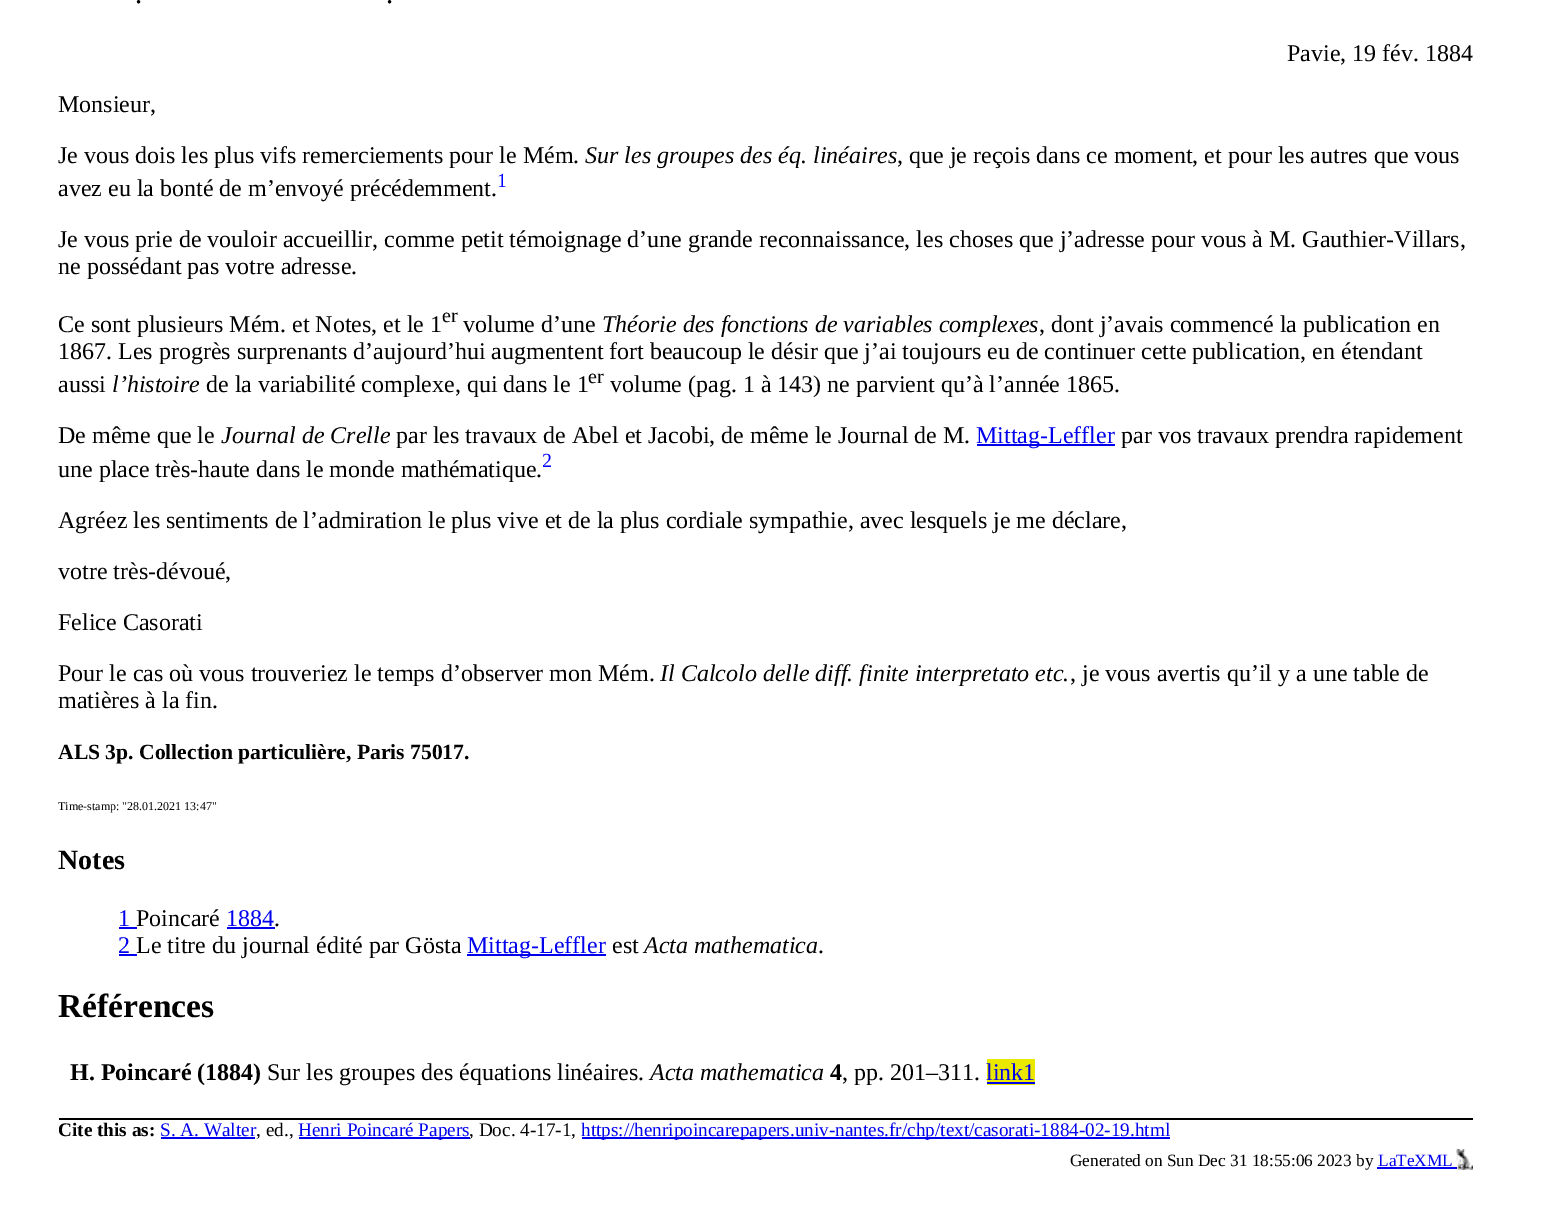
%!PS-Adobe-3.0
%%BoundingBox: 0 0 1553 1205
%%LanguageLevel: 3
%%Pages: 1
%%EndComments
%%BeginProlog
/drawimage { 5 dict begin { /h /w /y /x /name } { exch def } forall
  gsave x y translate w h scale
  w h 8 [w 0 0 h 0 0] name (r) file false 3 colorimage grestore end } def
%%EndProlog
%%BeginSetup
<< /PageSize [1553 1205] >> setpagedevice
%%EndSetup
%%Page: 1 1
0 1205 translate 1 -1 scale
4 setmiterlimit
1 setgray
0 0 1553 1205 rectfill
0 0 0.933 setrgbcolor
977 444 138 2 rectfill
119 927 18 2 rectfill
227 927 48 2 rectfill
119 954 18 2 rectfill
467 954 139 2 rectfill
0.922 0.91 0 setrgbcolor
987 1059 48 26 rectfill
0 0 0.933 setrgbcolor
987 1082 48 2 rectfill
0 setgray
59 1118 1414 2 rectfill
0 0 0.933 setrgbcolor
161 1137 94 2 rectfill
299 1137 171 2 rectfill
582 1137 588 2 rectfill
1377 1167 80 2 rectfill
(images/1.raw) 1456 1149 17 21 drawimage
/LiberationSerif-Regular [29 0 0 -29 0 0] selectfont
0 setgray
135 3 moveto (.) show
386 3 moveto (.) show
/LiberationSerif-Regular [24 0 0 -24 0 0] selectfont
1287 61 moveto (Pavie, 19 fév. 1884) show
58 112 moveto (Monsieur,) show
58 163 moveto (Je vous dois les plus vifs remerciements pour le Mém.) show
/LiberationSerif-Italic [24 0 0 -24 0 0] selectfont
585 163 moveto (Sur les groupes des éq. linéaires) show
/LiberationSerif-Regular [24 0 0 -24 0 0] selectfont
897 163 moveto (, que je reçois dans ce moment, et pour les autres que vous) show
58 196 moveto (avez eu la bonté de m’envoyé précédemment.) show
/LiberationSerif-Regular [20 0 0 -20 0 0] selectfont
0 0 1 setrgbcolor
497 187 moveto (1) show
/LiberationSerif-Regular [24 0 0 -24 0 0] selectfont
0 setgray
58 247 moveto (Je vous prie de vouloir accueillir, comme petit témoignage d’une grande reconnaissance, les choses que j’adresse pour vous à M. Gauthier-Villars,) show
58 274 moveto (ne possédant pas votre adresse.) show
58 332 moveto (Ce sont plusieurs Mém. et Notes, et le 1) show
/LiberationSerif-Regular [20 0 0 -20 0 0] selectfont
442 322 moveto (er) show
/LiberationSerif-Regular [24 0 0 -24 0 0] selectfont
463 332 moveto (volume d’une) show
/LiberationSerif-Italic [24 0 0 -24 0 0] selectfont
602 332 moveto (Théorie des fonctions de variables complexes) show
/LiberationSerif-Regular [24 0 0 -24 0 0] selectfont
1039 332 moveto (, dont j’avais commencé la publication en) show
58 359 moveto (1867. Les progrès surprenants d’aujourd’hui augmentent fort beaucoup le désir que j’ai toujours eu de continuer cette publication, en étendant) show
58 392 moveto (aussi) show
/LiberationSerif-Italic [24 0 0 -24 0 0] selectfont
112 392 moveto (l’histoire) show
/LiberationSerif-Regular [24 0 0 -24 0 0] selectfont
206 392 moveto (de la variabilité complexe, qui dans le 1) show
/LiberationSerif-Regular [20 0 0 -20 0 0] selectfont
588 383 moveto (er) show
/LiberationSerif-Regular [24 0 0 -24 0 0] selectfont
610 392 moveto (volume \(pag. 1 à 143\) ne parvient qu’à l’année 1865.) show
58 443 moveto (De même que le) show
/LiberationSerif-Italic [24 0 0 -24 0 0] selectfont
221 443 moveto (Journal de Crelle) show
/LiberationSerif-Regular [24 0 0 -24 0 0] selectfont
396 443 moveto (par les travaux de Abel et Jacobi, de même le Journal de M.) show
0 0 0.933 setrgbcolor
976 443 moveto (Mittag-Leffler) show
0 setgray
1121 443 moveto (par vos travaux prendra rapidement) show
58 477 moveto (une place très-haute dans le monde mathématique.) show
/LiberationSerif-Regular [20 0 0 -20 0 0] selectfont
0 0 1 setrgbcolor
542 467 moveto (2) show
/LiberationSerif-Regular [24 0 0 -24 0 0] selectfont
0 setgray
58 528 moveto (Agréez les sentiments de l’admiration le plus vive et de la plus cordiale sympathie, avec lesquels je me déclare,) show
58 579 moveto (votre très-dévoué,) show
58 630 moveto (Felice Casorati) show
58 681 moveto (Pour le cas où vous trouveriez le temps d’observer mon Mém.) show
/LiberationSerif-Italic [24 0 0 -24 0 0] selectfont
660 681 moveto (Il Calcolo delle diff. finite interpretato etc.) show
/LiberationSerif-Regular [24 0 0 -24 0 0] selectfont
1070 681 moveto (, je vous avertis qu’il y a une table de) show
58 708 moveto (matières à la fin.) show
/LiberationSerif-Bold [21.6 0 0 -21.6 0 0] selectfont
58 759 moveto (ALS 3p. Collection particulière, Paris 75017.) show
/LiberationSerif-Regular [12 0 0 -12 0 0] selectfont
58 810 moveto (Time-stamp: "28.01.2021 13:47") show
/LiberationSerif-Bold [28 0 0 -28 0 0] selectfont
58 869 moveto (Notes) show
/LiberationSerif-Regular [24 0 0 -24 0 0] selectfont
0 0 0.933 setrgbcolor
118 926 moveto (1) show
0 setgray
136 926 moveto (Poincaré) show
0 0 0.933 setrgbcolor
226 926 moveto (1884) show
0 setgray
274 926 moveto (.) show
0 0 0.933 setrgbcolor
118 953 moveto (2) show
0 setgray
136 953 moveto (Le titre du journal édité par Gösta) show
0 0 0.933 setrgbcolor
467 953 moveto (Mittag-Leffler) show
0 setgray
612 953 moveto (est) show
/LiberationSerif-Italic [24 0 0 -24 0 0] selectfont
644 953 moveto (Acta mathematica) show
/LiberationSerif-Regular [24 0 0 -24 0 0] selectfont
818 953 moveto (.) show
/LiberationSerif-Bold [33.5 0 0 -33.5 0 0] selectfont
58 1017 moveto (Références) show
/LiberationSerif-Bold [24 0 0 -24 0 0] selectfont
70 1080 moveto (H. Poincaré \(1884\)) show
/LiberationSerif-Regular [24 0 0 -24 0 0] selectfont
267 1080 moveto (Sur les groupes des équations linéaires.) show
/LiberationSerif-Italic [24 0 0 -24 0 0] selectfont
650 1080 moveto (Acta mathematica) show
/LiberationSerif-Bold [24 0 0 -24 0 0] selectfont
830 1080 moveto (4) show
/LiberationSerif-Regular [24 0 0 -24 0 0] selectfont
842 1080 moveto (, pp. 201–311.) show
0 0 0.933 setrgbcolor
986 1080 moveto (link1) show
/LiberationSerif-Bold [19.2 0 0 -19.2 0 0] selectfont
0 setgray
58 1136 moveto (Cite this as:) show
/LiberationSerif-Regular [19.2 0 0 -19.2 0 0] selectfont
0 0 0.933 setrgbcolor
160 1136 moveto (S. A. Walter) show
0 setgray
256 1136 moveto (, ed.,) show
0 0 0.933 setrgbcolor
298 1136 moveto (Henri Poincaré Papers) show
0 setgray
469 1136 moveto (, Doc. 4-17-1,) show
0 0 0.933 setrgbcolor
581 1136 moveto (https://henripoincarepapers.univ-nantes.fr/chp/text/casorati-1884-02-19.html) show
/LiberationSerif-Regular [17.25 0 0 -17.25 0 0] selectfont
0 setgray
1070 1166 moveto (Generated on Sun Dec 31 18:55:06 2023 by) show
0 0 0.933 setrgbcolor
1378 1166 moveto (LaTeXML) show
showpage
%%EOF
